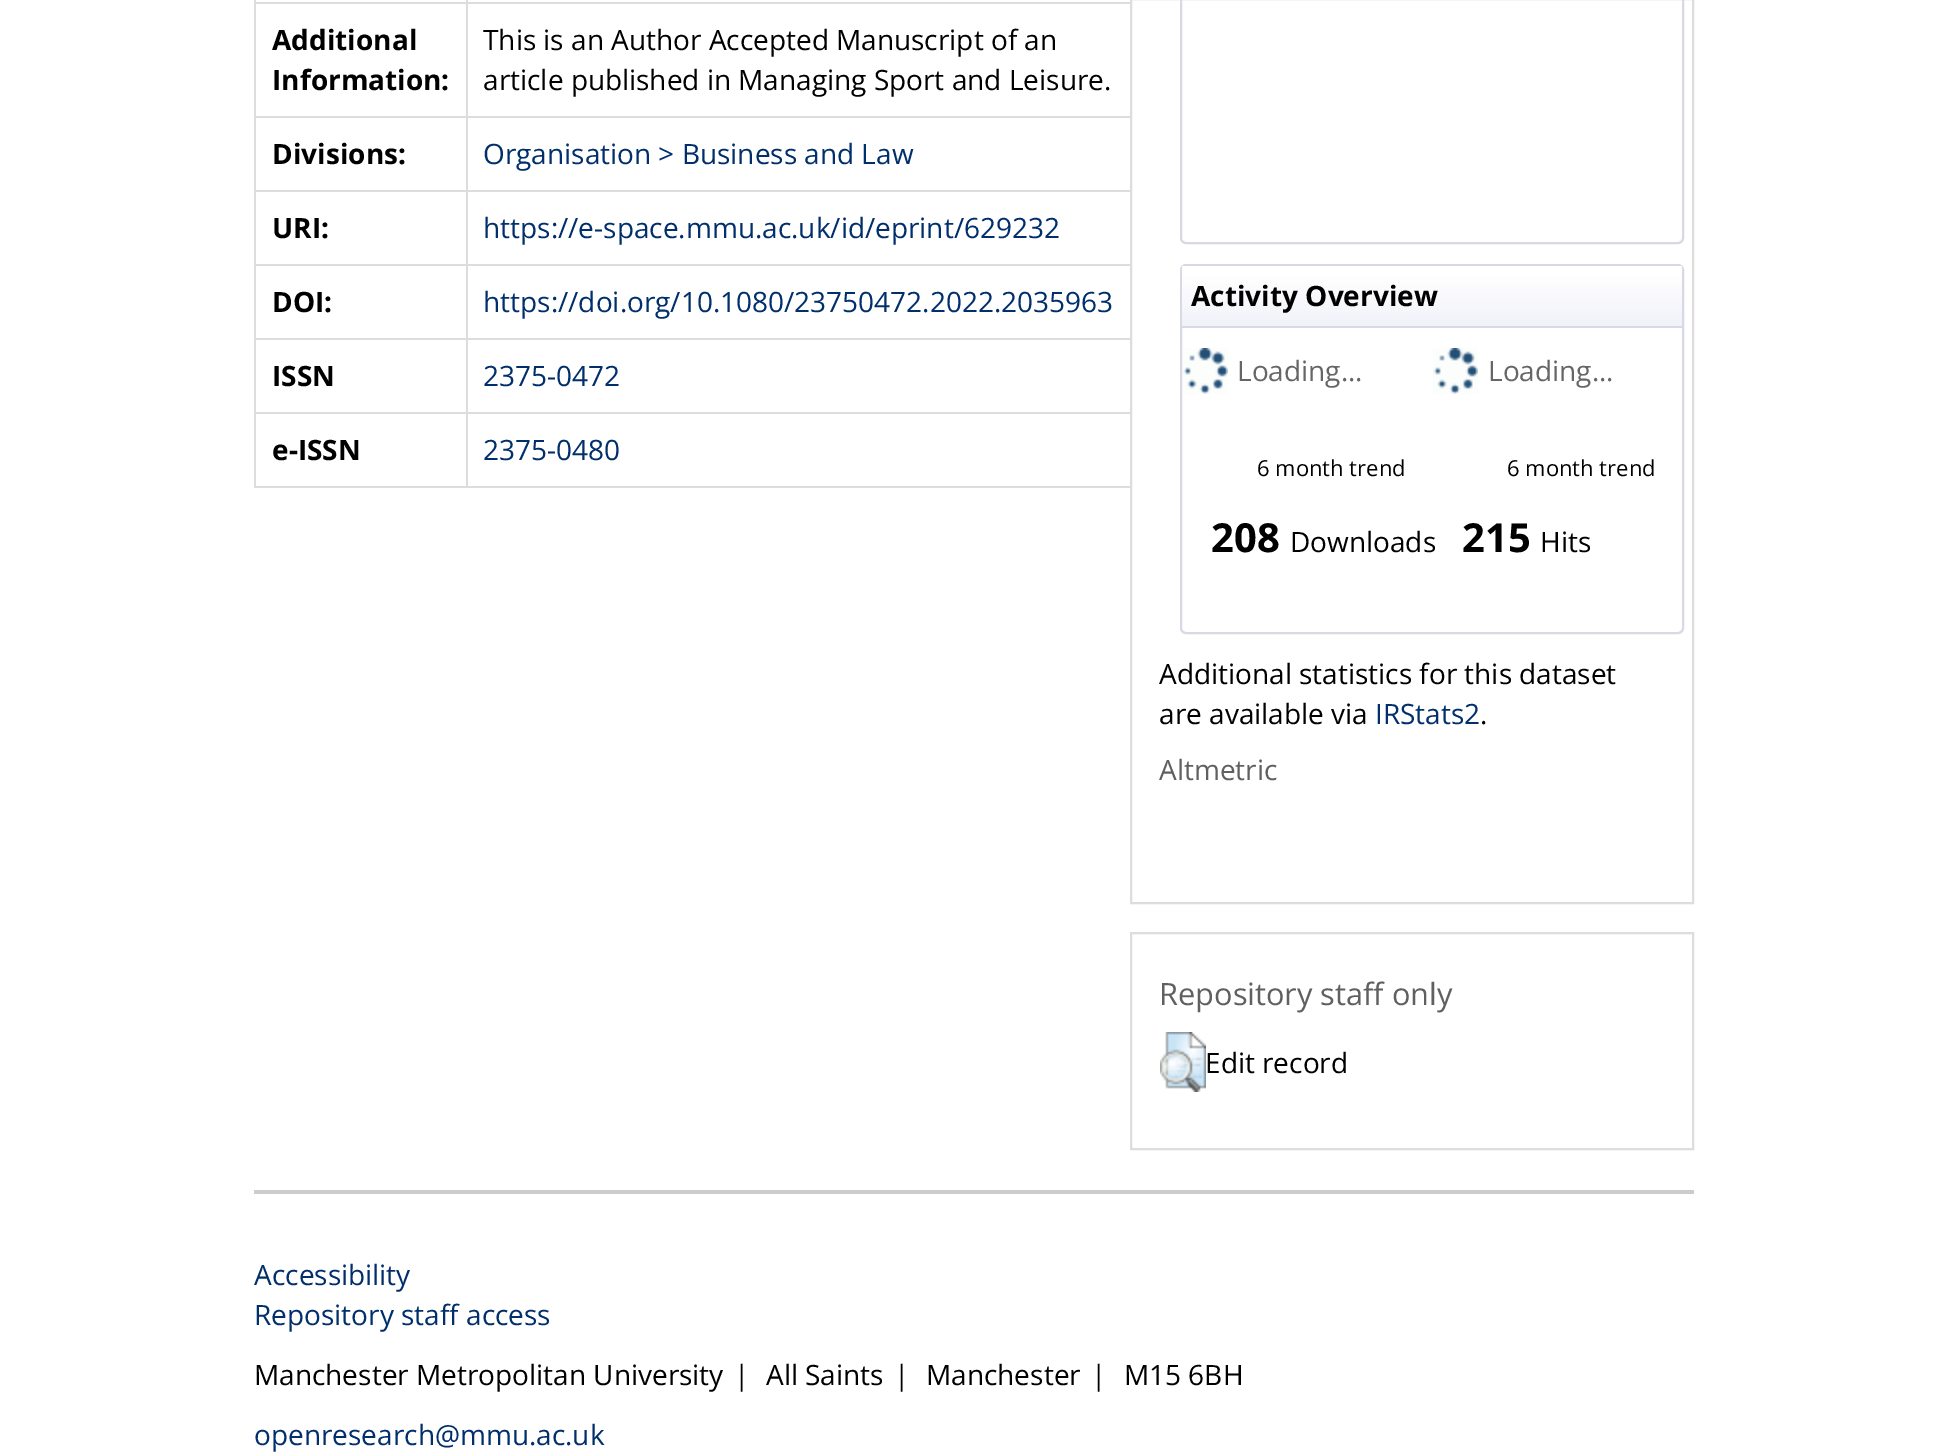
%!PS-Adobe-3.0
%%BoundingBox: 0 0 1947 1456
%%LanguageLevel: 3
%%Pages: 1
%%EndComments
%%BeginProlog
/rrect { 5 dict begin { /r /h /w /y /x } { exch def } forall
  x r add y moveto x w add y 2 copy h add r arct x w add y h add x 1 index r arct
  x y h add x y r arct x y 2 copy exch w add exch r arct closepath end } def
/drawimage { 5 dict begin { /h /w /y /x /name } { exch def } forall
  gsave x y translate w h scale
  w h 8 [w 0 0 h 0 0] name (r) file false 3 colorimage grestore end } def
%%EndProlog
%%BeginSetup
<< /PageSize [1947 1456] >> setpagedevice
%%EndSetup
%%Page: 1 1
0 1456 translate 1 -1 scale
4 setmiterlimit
1 setgray
0 0 1947 1456 rectfill
0.867 setgray
254 486 878 2 rectfill
254 0 2 488 rectfill
466 2 666 2 rectfill
466 116 666 2 rectfill
466 190 666 2 rectfill
466 264 666 2 rectfill
466 338 666 2 rectfill
466 412 666 2 rectfill
466 412 2 76 rectfill
254 412 214 2 rectfill
466 338 2 76 rectfill
254 338 214 2 rectfill
466 264 2 76 rectfill
254 264 214 2 rectfill
466 190 2 76 rectfill
254 190 214 2 rectfill
466 116 2 76 rectfill
254 116 214 2 rectfill
466 2 2 116 rectfill
254 2 214 2 rectfill
466 0 2 4 rectfill
2 setlinewidth
1131 -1 562 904 rectstroke
0.843 0.851 0.898 setrgbcolor
1181 -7 502 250 5 rrect stroke
1181 265 502 368 5 rrect stroke
(images/1.raw) 1182 266 500 60 drawimage
1182 326 500 2 rectfill
(images/2.raw) 1183 348 45 46 drawimage
(images/2.raw) 1433 348 45 46 drawimage
0.867 setgray
1131 933 562 216 rectstroke
(images/3.raw) 1160 1032 46 60 drawimage
0.8 setgray
254 1190 1440 4 rectfill
/OpenSans-Bold [28 0 0 -28 0 0] selectfont
0 setgray
272 50 moveto (Additional) show
272 90 moveto (Information:) show
/OpenSans-Regular [28 0 0 -28 0 0] selectfont
483 50 moveto (This is an Author Accepted Manuscript of an) show
483 90 moveto (article published in Managing Sport and Leisure.) show
/OpenSans-Bold [28 0 0 -28 0 0] selectfont
272 164 moveto (Divisions:) show
/OpenSans-Regular [28 0 0 -28 0 0] selectfont
0 0.184 0.424 setrgbcolor
483 164 moveto (Organisation > Business and Law) show
/OpenSans-Bold [28 0 0 -28 0 0] selectfont
0 setgray
272 238 moveto (URI:) show
/OpenSans-Regular [28 0 0 -28 0 0] selectfont
0 0.184 0.424 setrgbcolor
483 238 moveto (https://e-space.mmu.ac.uk/id/eprint/629232) show
/OpenSans-Bold [28 0 0 -28 0 0] selectfont
0 setgray
272 312 moveto (DOI:) show
/OpenSans-Regular [28 0 0 -28 0 0] selectfont
0 0.184 0.424 setrgbcolor
483 312 moveto (https://doi.org/10.1080/23750472.2022.2035963) show
/OpenSans-Bold [28 0 0 -28 0 0] selectfont
0 setgray
272 386 moveto (ISSN) show
/OpenSans-Regular [28 0 0 -28 0 0] selectfont
0 0.184 0.424 setrgbcolor
483 386 moveto (2375-0472) show
/OpenSans-Bold [28 0 0 -28 0 0] selectfont
0 setgray
272 460 moveto (e-ISSN) show
/OpenSans-Regular [28 0 0 -28 0 0] selectfont
0 0.184 0.424 setrgbcolor
483 460 moveto (2375-0480) show
/OpenSans-Bold [28 0 0 -28 0 0] selectfont
0 setgray
1191 306 moveto (Activity Overview) show
/OpenSans-Regular [28 0 0 -28 0 0] selectfont
0.4 setgray
1237 381 moveto (Loading...) show
/OpenSans-Regular [22 0 0 -22 0 0] selectfont
0 setgray
1257 476 moveto (6 month trend) show
/OpenSans-Bold [40 0 0 -40 0 0] selectfont
1211 552 moveto (208) show
/OpenSans-Regular [28 0 0 -28 0 0] selectfont
1290 552 moveto (Downloads) show
0.4 setgray
1488 381 moveto (Loading...) show
/OpenSans-Regular [22 0 0 -22 0 0] selectfont
0 setgray
1507 476 moveto (6 month trend) show
/OpenSans-Bold [40 0 0 -40 0 0] selectfont
1462 552 moveto (215) show
/OpenSans-Regular [28 0 0 -28 0 0] selectfont
1540 552 moveto (Hits) show
1159 684 moveto (Additional statistics for this dataset) show
1159 724 moveto (are available via) show
0 0.184 0.424 setrgbcolor
1375 724 moveto (IRStats2) show
0 setgray
1480 724 moveto (.) show
0.376 setgray
1159 780 moveto (Altmetric) show
/OpenSans-Regular [30.75 0 0 -30.75 0 0] selectfont
1159 1005 moveto (Repository staff only) show
/OpenSans-Regular [28 0 0 -28 0 0] selectfont
0 setgray
1205 1073 moveto (Edit record) show
0 0.184 0.424 setrgbcolor
254 1285 moveto (Accessibility) show
254 1325 moveto (Repository staff access) show
0 setgray
254 1385 moveto (Manchester Metropolitan University) show
734 1385 moveto (|) show
766 1385 moveto (All Saints) show
894 1385 moveto (|) show
926 1385 moveto (Manchester) show
1091 1385 moveto (|) show
1124 1385 moveto (M15 6BH) show
0 0.184 0.424 setrgbcolor
254 1445 moveto (openresearch@mmu.ac.uk) show
showpage
%%EOF
